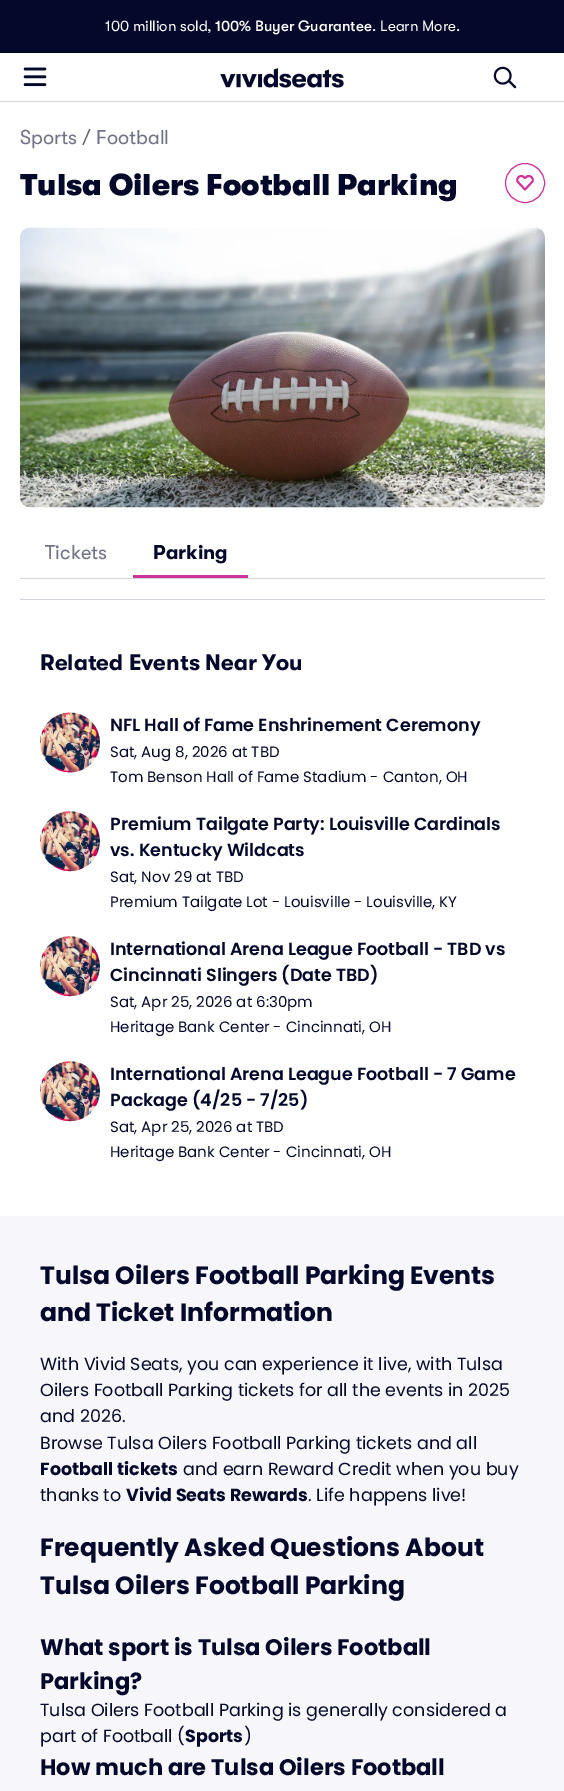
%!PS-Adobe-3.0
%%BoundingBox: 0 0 564 1791
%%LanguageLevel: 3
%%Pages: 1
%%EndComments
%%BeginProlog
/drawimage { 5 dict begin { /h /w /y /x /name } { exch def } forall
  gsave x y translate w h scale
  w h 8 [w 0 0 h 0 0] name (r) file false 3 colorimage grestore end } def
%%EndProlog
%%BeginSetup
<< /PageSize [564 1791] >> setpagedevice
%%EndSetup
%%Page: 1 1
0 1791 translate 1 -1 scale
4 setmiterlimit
0.965 0.965 0.984 setrgbcolor
0 0 564 1791 rectfill
0.016 0.035 0.173 setrgbcolor
0 0 564 53 rectfill
1 setgray
0 53 564 1163 rectfill
0.827 0.827 0.863 setrgbcolor
0 101 564 1 rectfill
(images/1.raw) 23 67 24 20 drawimage
(images/2.raw) 220 68 124 20 drawimage
(images/3.raw) 493 66 24 23 drawimage
0.808 0.192 0.592 setrgbcolor
newpath 525 183 19.5 0 360 arc closepath stroke
1.9 setlinewidth
1 setlinecap
1 setlinejoin
newpath 525 189.5 moveto 517.5 181.5 lineto 516 178 520 174.5 523 176.5 curveto 525 178 lineto 527 176.5 lineto 530 174.5 534 178 532.5 181.5 curveto closepath stroke
(images/4.raw) 20 227 525 281 drawimage
0.827 0.827 0.863 setrgbcolor
20 578 525 1 rectfill
0.808 0.192 0.592 setrgbcolor
133 575 115 3 rectfill
0.827 0.827 0.863 setrgbcolor
20 599 525 1 rectfill
(images/5.raw) 40 712 61 61 drawimage
(images/6.raw) 40 811 61 61 drawimage
(images/6.raw) 40 936 61 61 drawimage
(images/6.raw) 40 1061 61 61 drawimage
/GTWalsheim-Regular [15 0 0 -15 0 0] selectfont
1 setgray
105 31 moveto (100 million sold,) show
/GTWalsheim-Medium [15 0 0 -15 0 0] selectfont
215 31 moveto (100% Buyer Guarantee) show
/GTWalsheim-Regular [15 0 0 -15 0 0] selectfont
372 31 moveto (. Learn More.) show
/GTWalsheim-Regular [20 0 0 -20 0 0] selectfont
0.443 0.455 0.533 setrgbcolor
20 144 moveto (Sports) show
0.4 setgray
82 144 moveto (/) show
0.443 0.455 0.533 setrgbcolor
96 144 moveto (Football) show
/GTWalsheim-ExtraBold [30 0 0 -30 0 0] selectfont
0.016 0.035 0.173 setrgbcolor
20 195 moveto (Tulsa Oilers Football Parking) show
/GTWalsheim-Regular [20 0 0 -20 0 0] selectfont
0.443 0.455 0.533 setrgbcolor
45 559 moveto (Tickets) show
/GTWalsheim-Bold [20 0 0 -20 0 0] selectfont
0.016 0.035 0.173 setrgbcolor
153 559 moveto (Parking) show
/GTWalsheim-Bold [22.5 0 0 -22.5 0 0] selectfont
40 670 moveto (Related Events Near You) show
/Poppins-SemiBold [17.5 0 0 -17.5 0 0] selectfont
110 731 moveto (NFL Hall of Fame Enshrinement Ceremony) show
/Poppins-Regular [15 0 0 -15 0 0] selectfont
110 757 moveto (Sat, Aug 8, 2026 at TBD) show
110 782 moveto (Tom Benson Hall of Fame Stadium - Canton, OH) show
/Poppins-SemiBold [17.5 0 0 -17.5 0 0] selectfont
110 830 moveto (Premium Tailgate Party: Louisville Cardinals) show
110 856 moveto (vs. Kentucky Wildcats) show
/Poppins-Regular [15 0 0 -15 0 0] selectfont
110 882 moveto (Sat, Nov 29 at TBD) show
110 907 moveto (Premium Tailgate Lot - Louisville - Louisville, KY) show
/Poppins-SemiBold [17.5 0 0 -17.5 0 0] selectfont
110 955 moveto (International Arena League Football - TBD vs) show
110 981 moveto (Cincinnati Slingers \(Date TBD\)) show
/Poppins-Regular [15 0 0 -15 0 0] selectfont
110 1007 moveto (Sat, Apr 25, 2026 at 6:30pm) show
110 1032 moveto (Heritage Bank Center - Cincinnati, OH) show
/Poppins-SemiBold [17.5 0 0 -17.5 0 0] selectfont
110 1080 moveto (International Arena League Football - 7 Game) show
110 1106 moveto (Package \(4/25 - 7/25\)) show
/Poppins-Regular [15 0 0 -15 0 0] selectfont
110 1132 moveto (Sat, Apr 25, 2026 at TBD) show
110 1157 moveto (Heritage Bank Center - Cincinnati, OH) show
/Poppins-Bold [25 0 0 -25 0 0] selectfont
40 1284 moveto (Tulsa Oilers Football Parking Events) show
40 1321 moveto (and Ticket Information) show
/Poppins-Regular [17.5 0 0 -17.5 0 0] selectfont
40 1370 moveto (With Vivid Seats, you can experience it live, with Tulsa) show
40 1396 moveto (Oilers Football Parking tickets for all the events in 2025) show
40 1422 moveto (and 2026.) show
40 1449 moveto (Browse Tulsa Oilers Football Parking tickets and all) show
/Poppins-Bold [17.5 0 0 -17.5 0 0] selectfont
40 1475 moveto (Football tickets) show
/Poppins-Regular [17.5 0 0 -17.5 0 0] selectfont
183 1475 moveto (and earn Reward Credit when you buy) show
40 1501 moveto (thanks to) show
/Poppins-Bold [17.5 0 0 -17.5 0 0] selectfont
126 1501 moveto (Vivid Seats Rewards) show
/Poppins-Regular [17.5 0 0 -17.5 0 0] selectfont
308 1501 moveto (. Life happens live!) show
/Poppins-Bold [25 0 0 -25 0 0] selectfont
40 1556 moveto (Frequently Asked Questions About) show
40 1594 moveto (Tulsa Oilers Football Parking) show
/Poppins-Bold [22.5 0 0 -22.5 0 0] selectfont
40 1655 moveto (What sport is Tulsa Oilers Football) show
40 1689 moveto (Parking?) show
/Poppins-Regular [17.5 0 0 -17.5 0 0] selectfont
40 1716 moveto (Tulsa Oilers Football Parking is generally considered a) show
40 1742 moveto (part of Football \() show
/Poppins-Bold [17.5 0 0 -17.5 0 0] selectfont
185 1742 moveto (Sports) show
/Poppins-Regular [17.5 0 0 -17.5 0 0] selectfont
244 1742 moveto (\)) show
/Poppins-Bold [22.5 0 0 -22.5 0 0] selectfont
40 1775 moveto (How much are Tulsa Oilers Football) show
showpage
%%EOF
